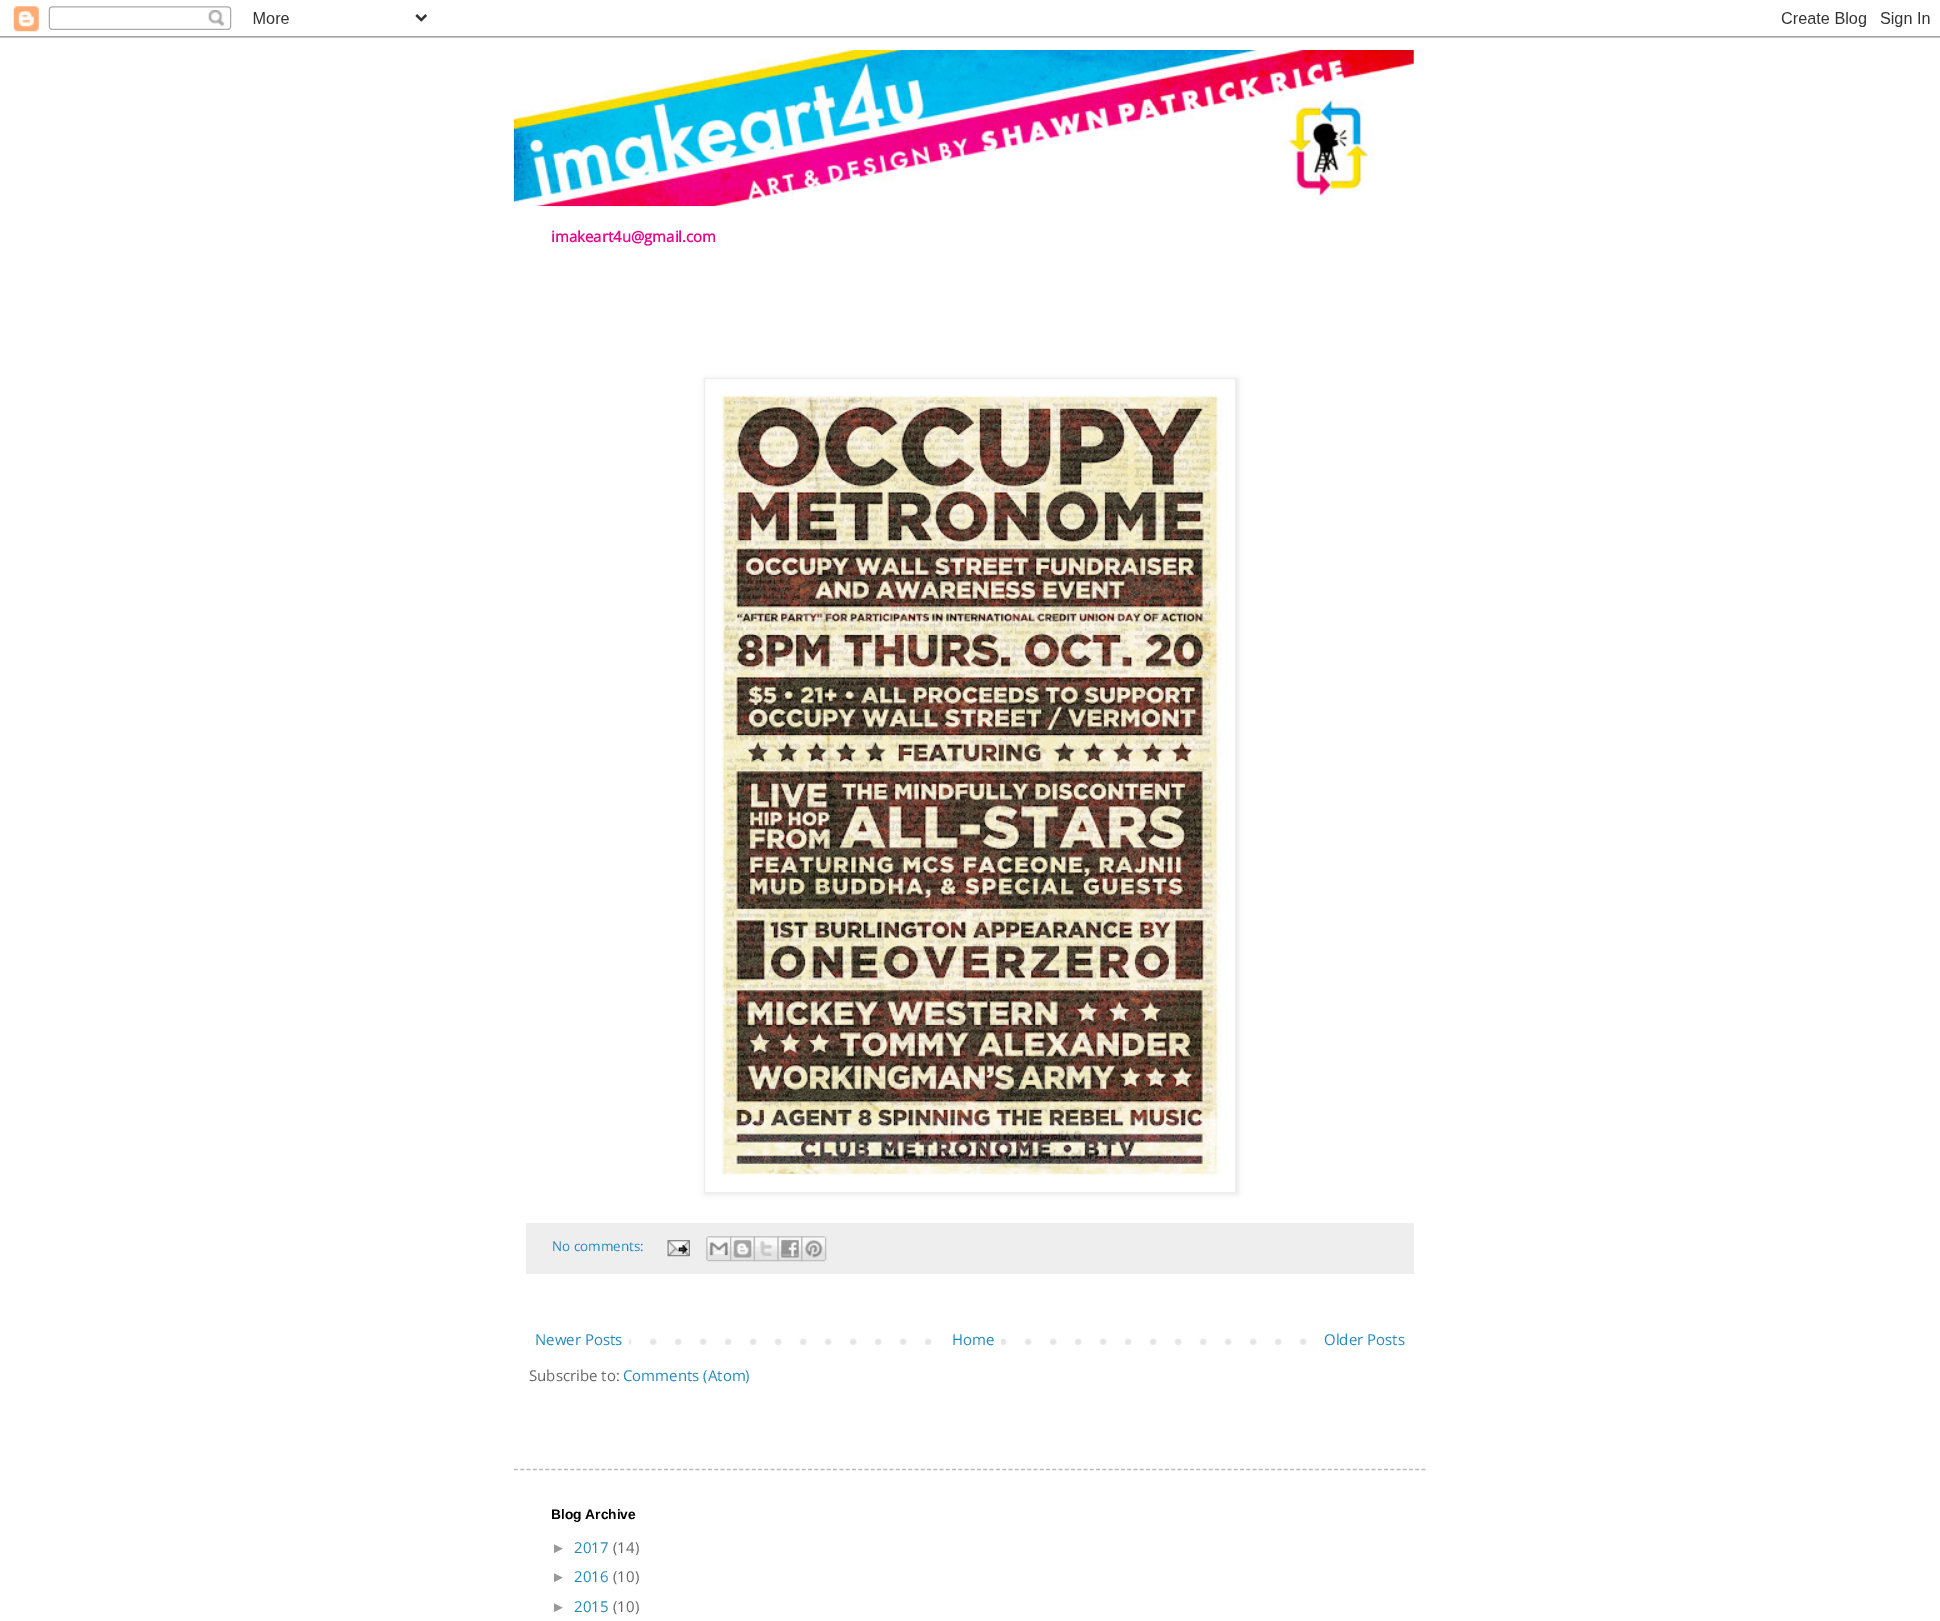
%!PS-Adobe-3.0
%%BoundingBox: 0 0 1940 1621
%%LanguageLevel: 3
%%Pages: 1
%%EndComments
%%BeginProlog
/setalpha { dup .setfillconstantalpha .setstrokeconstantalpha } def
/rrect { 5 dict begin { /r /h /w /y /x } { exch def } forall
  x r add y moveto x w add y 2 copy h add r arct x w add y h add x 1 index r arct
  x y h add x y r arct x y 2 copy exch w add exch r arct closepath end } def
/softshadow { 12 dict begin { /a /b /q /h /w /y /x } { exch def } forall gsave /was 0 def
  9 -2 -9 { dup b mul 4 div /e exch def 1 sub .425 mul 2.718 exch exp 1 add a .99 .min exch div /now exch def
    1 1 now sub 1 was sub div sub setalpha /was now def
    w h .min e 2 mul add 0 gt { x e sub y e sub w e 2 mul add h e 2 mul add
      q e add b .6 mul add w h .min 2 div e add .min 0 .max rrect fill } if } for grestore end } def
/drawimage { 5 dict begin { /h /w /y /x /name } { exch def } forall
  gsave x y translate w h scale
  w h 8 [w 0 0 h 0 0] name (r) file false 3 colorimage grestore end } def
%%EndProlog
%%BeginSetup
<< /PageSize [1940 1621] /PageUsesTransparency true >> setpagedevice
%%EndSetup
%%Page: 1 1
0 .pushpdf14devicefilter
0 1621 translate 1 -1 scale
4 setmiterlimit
1 setgray
0 0 1940 1621 rectfill
(images/1.raw) 0 6 1940 32 drawimage
(images/2.raw) 513 50 901 157 drawimage
0 setgray
705 379 533 815 0 3 0.1 softshadow
1 setgray
newpath 704.5 378.5 moveto 1235.5 378.5 lineto 1235.5 1192.5 lineto 704.5 1192.5 lineto closepath gsave fill grestore
0.933 setgray
stroke
(images/3.raw) 721 395 501 780 drawimage
526 1223 888 51 rectfill
(images/4.raw) 667 1240 23 17 drawimage
(images/5.raw) 706 1236 26 26 drawimage
(images/6.raw) 730 1236 25 26 drawimage
(images/7.raw) 753 1236 26 26 drawimage
(images/8.raw) 777 1236 26 26 drawimage
(images/9.raw) 801 1236 26 26 drawimage
(images/10.raw) 528 1338 779 7 drawimage
1 setgray
529 1338 100 7 rectfill
950 1338 51 7 rectfill
0.733 setgray
1.2 setlinewidth
[3.75 2.51] 0 setdash
newpath 514 1469.5 moveto 1426 1469.5 lineto stroke
/OpenSans-Bold [15 0 0 -15 0 0] selectfont
0.925 0 0.549 setrgbcolor
551 242 moveto (imakeart4u@gmail.com) show
/OpenSans-Regular [13.5 0 0 -13.5 0 0] selectfont
0.133 0.533 0.733 setrgbcolor
552 1251 moveto (No comments:) show
/OpenSans-Regular [15 0 0 -15 0 0] selectfont
535 1345 moveto (Newer Posts) show
952 1345 moveto (Home) show
1324 1345 moveto (Older Posts) show
0.4 setgray
529 1381 moveto (Subscribe to:) show
0.133 0.533 0.733 setrgbcolor
623 1381 moveto (Comments \(Atom\)) show
/LiberationSans-Bold [13.75 0 0 -13.75 0 0] selectfont
0 setgray
551 1519 moveto (Blog Archive) show
/LiberationSans-Regular [15 0 0 -15 0 0] selectfont
0.6 setgray
551 1553 moveto (►) show
/OpenSans-Regular [15 0 0 -15 0 0] selectfont
0.133 0.533 0.733 setrgbcolor
574 1553 moveto (2017) show
0.4 setgray
613 1553 moveto (\(14\)) show
/LiberationSans-Regular [15 0 0 -15 0 0] selectfont
0.6 setgray
551 1582 moveto (►) show
/OpenSans-Regular [15 0 0 -15 0 0] selectfont
0.133 0.533 0.733 setrgbcolor
574 1582 moveto (2016) show
0.4 setgray
613 1582 moveto (\(10\)) show
/LiberationSans-Regular [15 0 0 -15 0 0] selectfont
0.6 setgray
551 1612 moveto (►) show
/OpenSans-Regular [15 0 0 -15 0 0] selectfont
0.133 0.533 0.733 setrgbcolor
574 1612 moveto (2015) show
0.4 setgray
613 1612 moveto (\(10\)) show
.poppdf14devicefilter showpage
%%EOF
